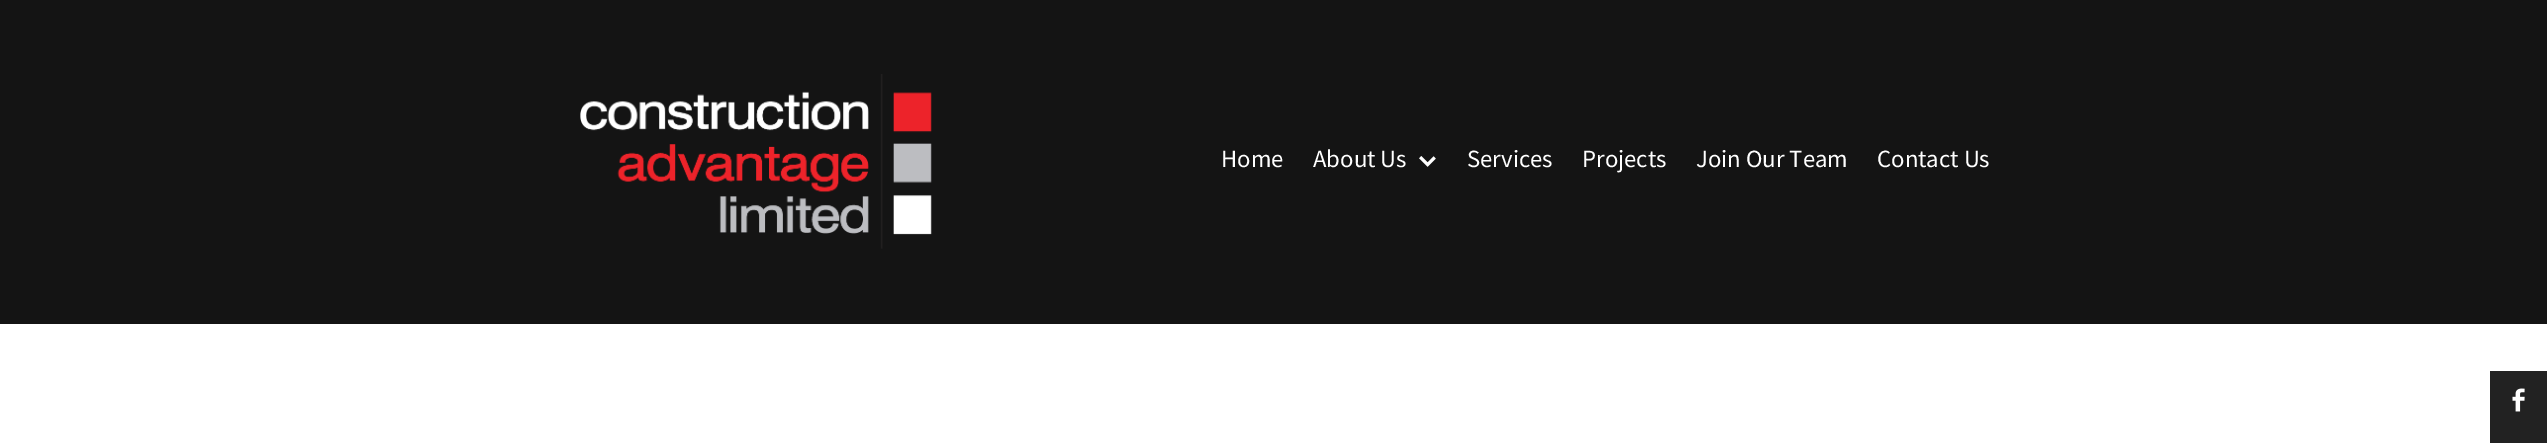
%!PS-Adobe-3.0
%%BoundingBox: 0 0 2547 443
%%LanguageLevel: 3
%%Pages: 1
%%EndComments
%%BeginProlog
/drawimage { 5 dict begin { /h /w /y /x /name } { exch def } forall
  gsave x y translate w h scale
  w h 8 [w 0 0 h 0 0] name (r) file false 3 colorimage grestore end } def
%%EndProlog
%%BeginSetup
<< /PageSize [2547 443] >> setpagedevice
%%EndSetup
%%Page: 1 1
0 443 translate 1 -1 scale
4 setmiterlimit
1 setgray
0 0 2547 443 rectfill
0.078 setgray
0 0 2547 324 rectfill
(images/1.raw) 580 74 352 175 drawimage
(images/2.raw) 1419 156 17 11 drawimage
0.133 setgray
2490 371 57 72 rectfill
(images/3.raw) 2512 388 13 24 drawimage
/SourceSansPro-Regular [24.75 0 0 -24.75 0 0] selectfont
1 setgray
1221 167 moveto (Home) show
1313 167 moveto (About Us) show
1467 167 moveto (Services) show
1582 167 moveto (Projects) show
1696 167 moveto (Join Our Team) show
1877 167 moveto (Contact Us) show
showpage
%%EOF
